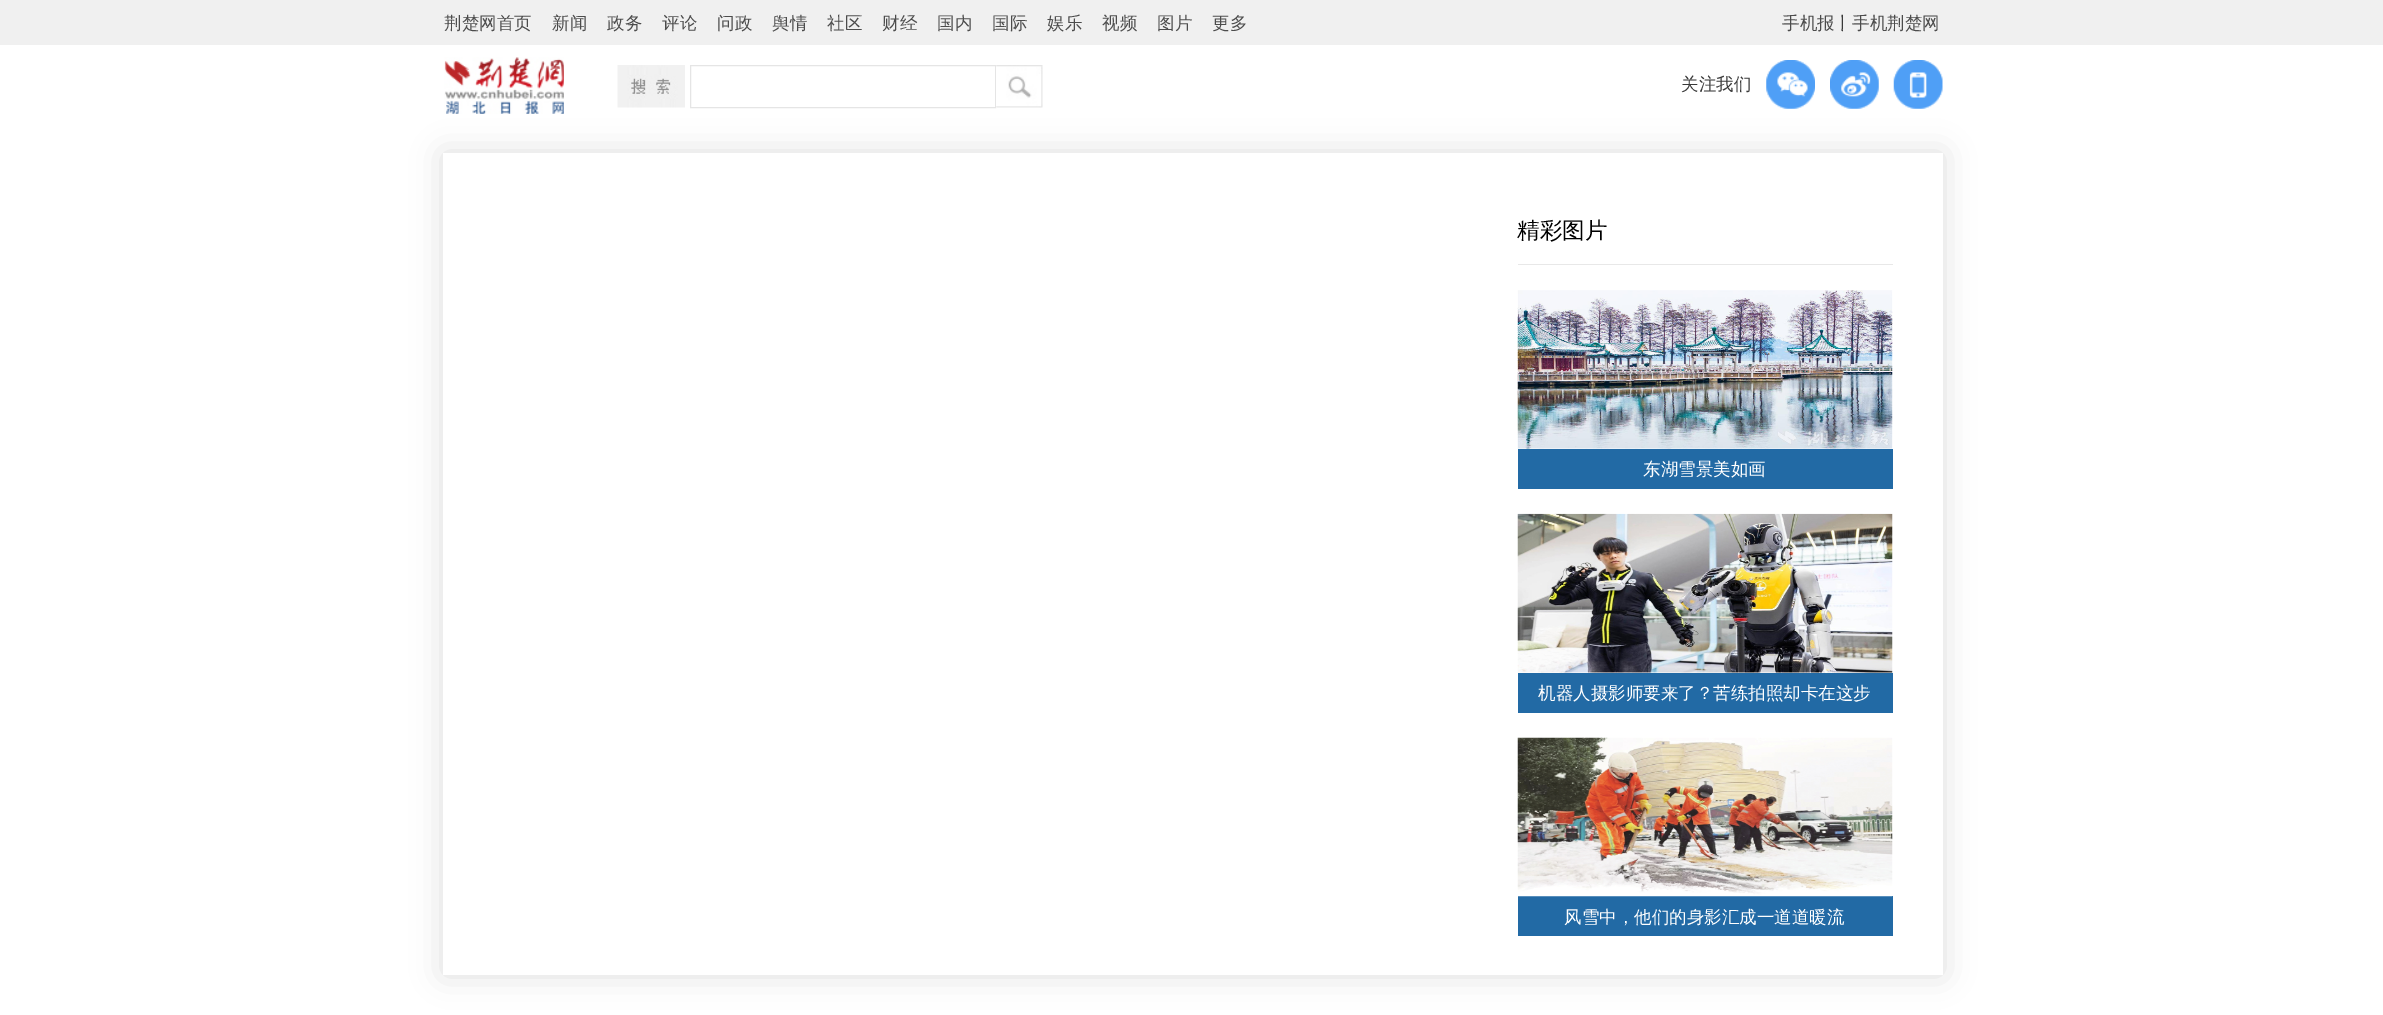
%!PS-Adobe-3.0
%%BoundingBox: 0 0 2383 1015
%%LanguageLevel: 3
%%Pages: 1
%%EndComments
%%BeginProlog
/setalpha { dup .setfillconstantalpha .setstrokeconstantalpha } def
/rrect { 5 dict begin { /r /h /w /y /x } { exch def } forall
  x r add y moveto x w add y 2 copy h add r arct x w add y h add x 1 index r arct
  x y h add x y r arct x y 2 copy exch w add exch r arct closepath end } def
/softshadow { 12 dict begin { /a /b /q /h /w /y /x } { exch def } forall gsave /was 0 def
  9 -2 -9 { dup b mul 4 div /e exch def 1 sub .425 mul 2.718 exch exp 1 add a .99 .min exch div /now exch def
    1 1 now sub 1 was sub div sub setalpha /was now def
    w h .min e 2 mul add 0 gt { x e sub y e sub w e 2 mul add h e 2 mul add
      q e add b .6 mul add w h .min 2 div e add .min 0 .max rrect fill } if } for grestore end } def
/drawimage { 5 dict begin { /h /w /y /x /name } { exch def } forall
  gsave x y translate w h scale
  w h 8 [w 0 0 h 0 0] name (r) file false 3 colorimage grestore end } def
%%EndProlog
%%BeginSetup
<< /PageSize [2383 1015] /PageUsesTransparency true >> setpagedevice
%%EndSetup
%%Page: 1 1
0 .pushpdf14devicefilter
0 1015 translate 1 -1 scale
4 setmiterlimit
1 setgray
0 0 2383 1015 rectfill
0.941 setgray
0 0 2383 45 rectfill
(images/1.raw) 444 57 120 57 drawimage
(images/2.raw) 617 65 68 43 drawimage
0.898 setgray
690.5 65.5 305 42 rectstroke
(images/3.raw) 996 65 47 43 drawimage
(images/4.raw) 1766 60 49 49 drawimage
(images/5.raw) 1830 60 49 49 drawimage
(images/6.raw) 1893 60 50 49 drawimage
gsave
newpath 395 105 moveto 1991 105 lineto 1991 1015 lineto 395 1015 lineto closepath 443 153 moveto 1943 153 lineto 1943 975 lineto 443 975 lineto closepath eoclip newpath
0 setgray
443 153 1500 822 0 15.5 0.13 softshadow
grestore
0.91 setgray
1518 264 375 1 rectfill
(images/7.raw) 1517 290 376 159 drawimage
0.133 0.416 0.647 setrgbcolor
1518 449 375 40 rectfill
(images/8.raw) 1517 513 376 160 drawimage
1518 673 375 40 rectfill
1518 896 375 40 rectfill
(images/9.raw) 1517 737 376 160 drawimage
/WenQuanYiZenHei-Medium [17.5 0 0 -17.5 0 0] selectfont
0.298 setgray
444 29 moveto (荆楚网首页) show
552 29 moveto (新闻) show
607 29 moveto (政务) show
662 29 moveto (评论) show
717 29 moveto (问政) show
772 29 moveto (舆情) show
827 29 moveto (社区) show
882 29 moveto (财经) show
937 29 moveto (国内) show
992 29 moveto (国际) show
1047 29 moveto (娱乐) show
1102 29 moveto (视频) show
1157 29 moveto (图片) show
1212 29 moveto (更多) show
1782 29 moveto (手机报) show
0.224 setgray
1834 29 moveto (丨) show
0.298 setgray
1852 29 moveto (手机荆楚网) show
0.224 setgray
1681 90 moveto (关注我们) show
/WenQuanYiZenHei-Medium [22.5 0 0 -22.5 0 0] selectfont
0 setgray
1517 238 moveto (精彩图片) show
/WenQuanYiZenHei-Medium [17.5 0 0 -17.5 0 0] selectfont
1 setgray
1643 475 moveto (东湖雪景美如画) show
1538 699 moveto (机器人摄影师要来了？苦练拍照却卡在这步) show
1564 923 moveto (风雪中，他们的身影汇成一道道暖流) show
.poppdf14devicefilter showpage
%%EOF
